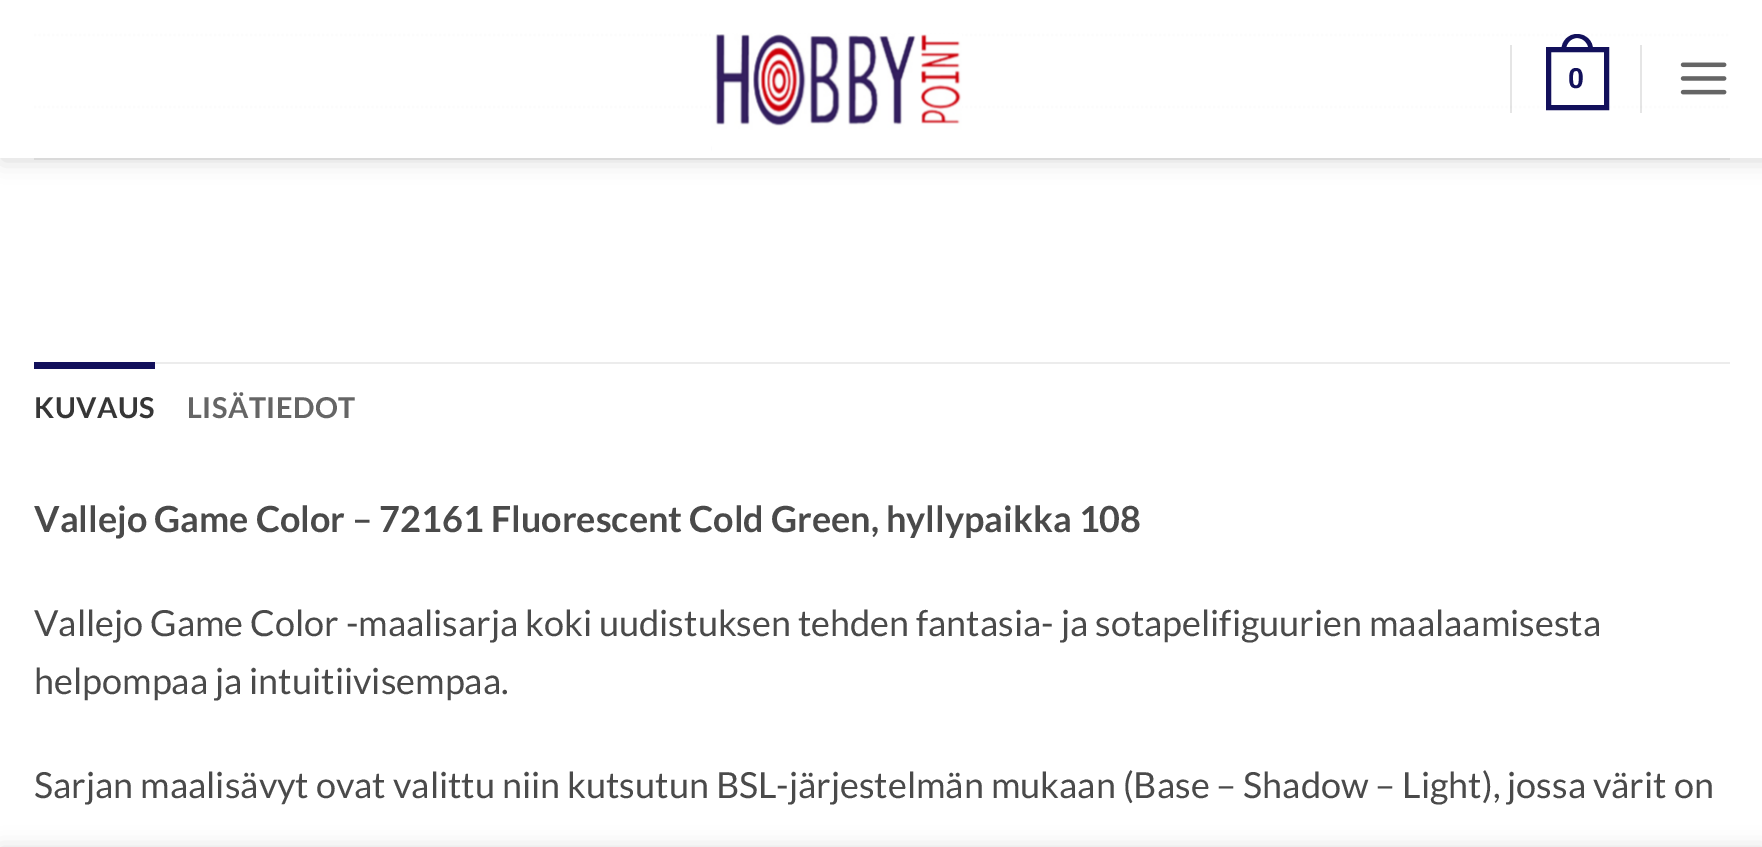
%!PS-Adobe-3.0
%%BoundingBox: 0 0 1762 847
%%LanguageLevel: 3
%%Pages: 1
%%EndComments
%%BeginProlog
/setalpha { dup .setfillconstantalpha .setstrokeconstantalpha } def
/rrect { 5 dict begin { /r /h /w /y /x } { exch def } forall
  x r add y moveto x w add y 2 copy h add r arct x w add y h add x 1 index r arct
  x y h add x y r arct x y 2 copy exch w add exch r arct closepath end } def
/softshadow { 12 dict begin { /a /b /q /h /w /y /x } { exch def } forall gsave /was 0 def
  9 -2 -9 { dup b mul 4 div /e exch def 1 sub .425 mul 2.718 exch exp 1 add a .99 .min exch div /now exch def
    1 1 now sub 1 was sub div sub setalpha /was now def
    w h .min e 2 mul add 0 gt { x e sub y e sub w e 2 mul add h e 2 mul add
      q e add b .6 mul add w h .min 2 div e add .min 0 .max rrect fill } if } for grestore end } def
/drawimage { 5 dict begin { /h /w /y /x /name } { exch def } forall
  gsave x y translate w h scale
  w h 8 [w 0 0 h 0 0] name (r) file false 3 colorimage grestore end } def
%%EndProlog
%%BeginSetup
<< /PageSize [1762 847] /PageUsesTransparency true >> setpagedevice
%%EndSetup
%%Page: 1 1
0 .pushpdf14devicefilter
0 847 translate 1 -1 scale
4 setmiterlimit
1 setgray
0 0 1762 847 rectfill
0.867 setgray
2.2 setlinewidth
[2.25 2.25] 0 setdash
newpath 34 35 moveto 1730 35 lineto stroke
newpath 34 107 moveto 1730 107 lineto stroke
gsave
newpath 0 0 moveto 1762 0 lineto 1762 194 lineto 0 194 lineto closepath 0 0 moveto 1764 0 lineto 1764 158 lineto 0 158 lineto closepath eoclip newpath
0 setgray
2 2 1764 158 0 11 0.15 softshadow
grestore
0.9 setalpha
1 setgray
0 33 1762 125 rectfill
1 setalpha
(images/1.raw) 711 34 251 119 drawimage
0.1 setalpha
0 setgray
1510 45 2 68 rectfill
1 setalpha
0.071 0.063 0.357 setrgbcolor
5 setlinewidth
[] 0 setdash
1548.5 49.5 58 58 rectstroke
newpath 1577 34 moveto 1586 34 1593 41 1593 49.5 curveto 1593 52 lineto 1561.5 52 lineto 1561.5 49.5 lineto 1561.5 41 1568.5 34 1577 34 curveto closepath 1577 38 moveto 1583.5 38 1588.5 43.5 1588.5 49.5 curveto 1588.5 52 lineto 1566 52 lineto 1566 49.5 lineto 1566 43.5 1571 38 1577 38 curveto closepath eofill
0.1 setalpha
0 setgray
1640 45 2 68 rectfill
1 setalpha
(images/2.raw) 1680 62 47 33 drawimage
0.855 setgray
34 158 1696 2 rectfill
0.925 setgray
155 362 1575 2 rectfill
0.071 0.063 0.357 setrgbcolor
34 362 121 7 rectfill
0 setgray
0 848 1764 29 0 10 0.14 softshadow
/LiberationSans-Bold [28.75 0 0 -28.75 0 0] selectfont
0.071 0.063 0.357 setrgbcolor
1568 88 moveto (0) show
/Lato-Bold [28.75 0 0 -28.75 0 0] selectfont
0.212 setgray
34 418 moveto 0.5 0 (KUVAUS) ashow
0.396 setgray
187 418 moveto 0.5 0 (LISÄTIEDOT) ashow
/Lato-Bold [36 0 0 -36 0 0] selectfont
0.29 setgray
34 532 moveto (Vallejo Game Color – 72161 Fluorescent Cold Green, hyllypaikka 108) show
/Lato-Regular [36 0 0 -36 0 0] selectfont
34 636 moveto (Vallejo Game Color -maalisarja koki uudistuksen tehden fantasia- ja sotapelifiguurien maalaamisesta) show
34 694 moveto (helpompaa ja intuitiivisempaa.) show
34 798 moveto (Sarjan maalisävyt ovat valittu niin kutsutun BSL-järjestelmän mukaan \(Base – Shadow – Light\), jossa värit on) show
.poppdf14devicefilter showpage
%%EOF
